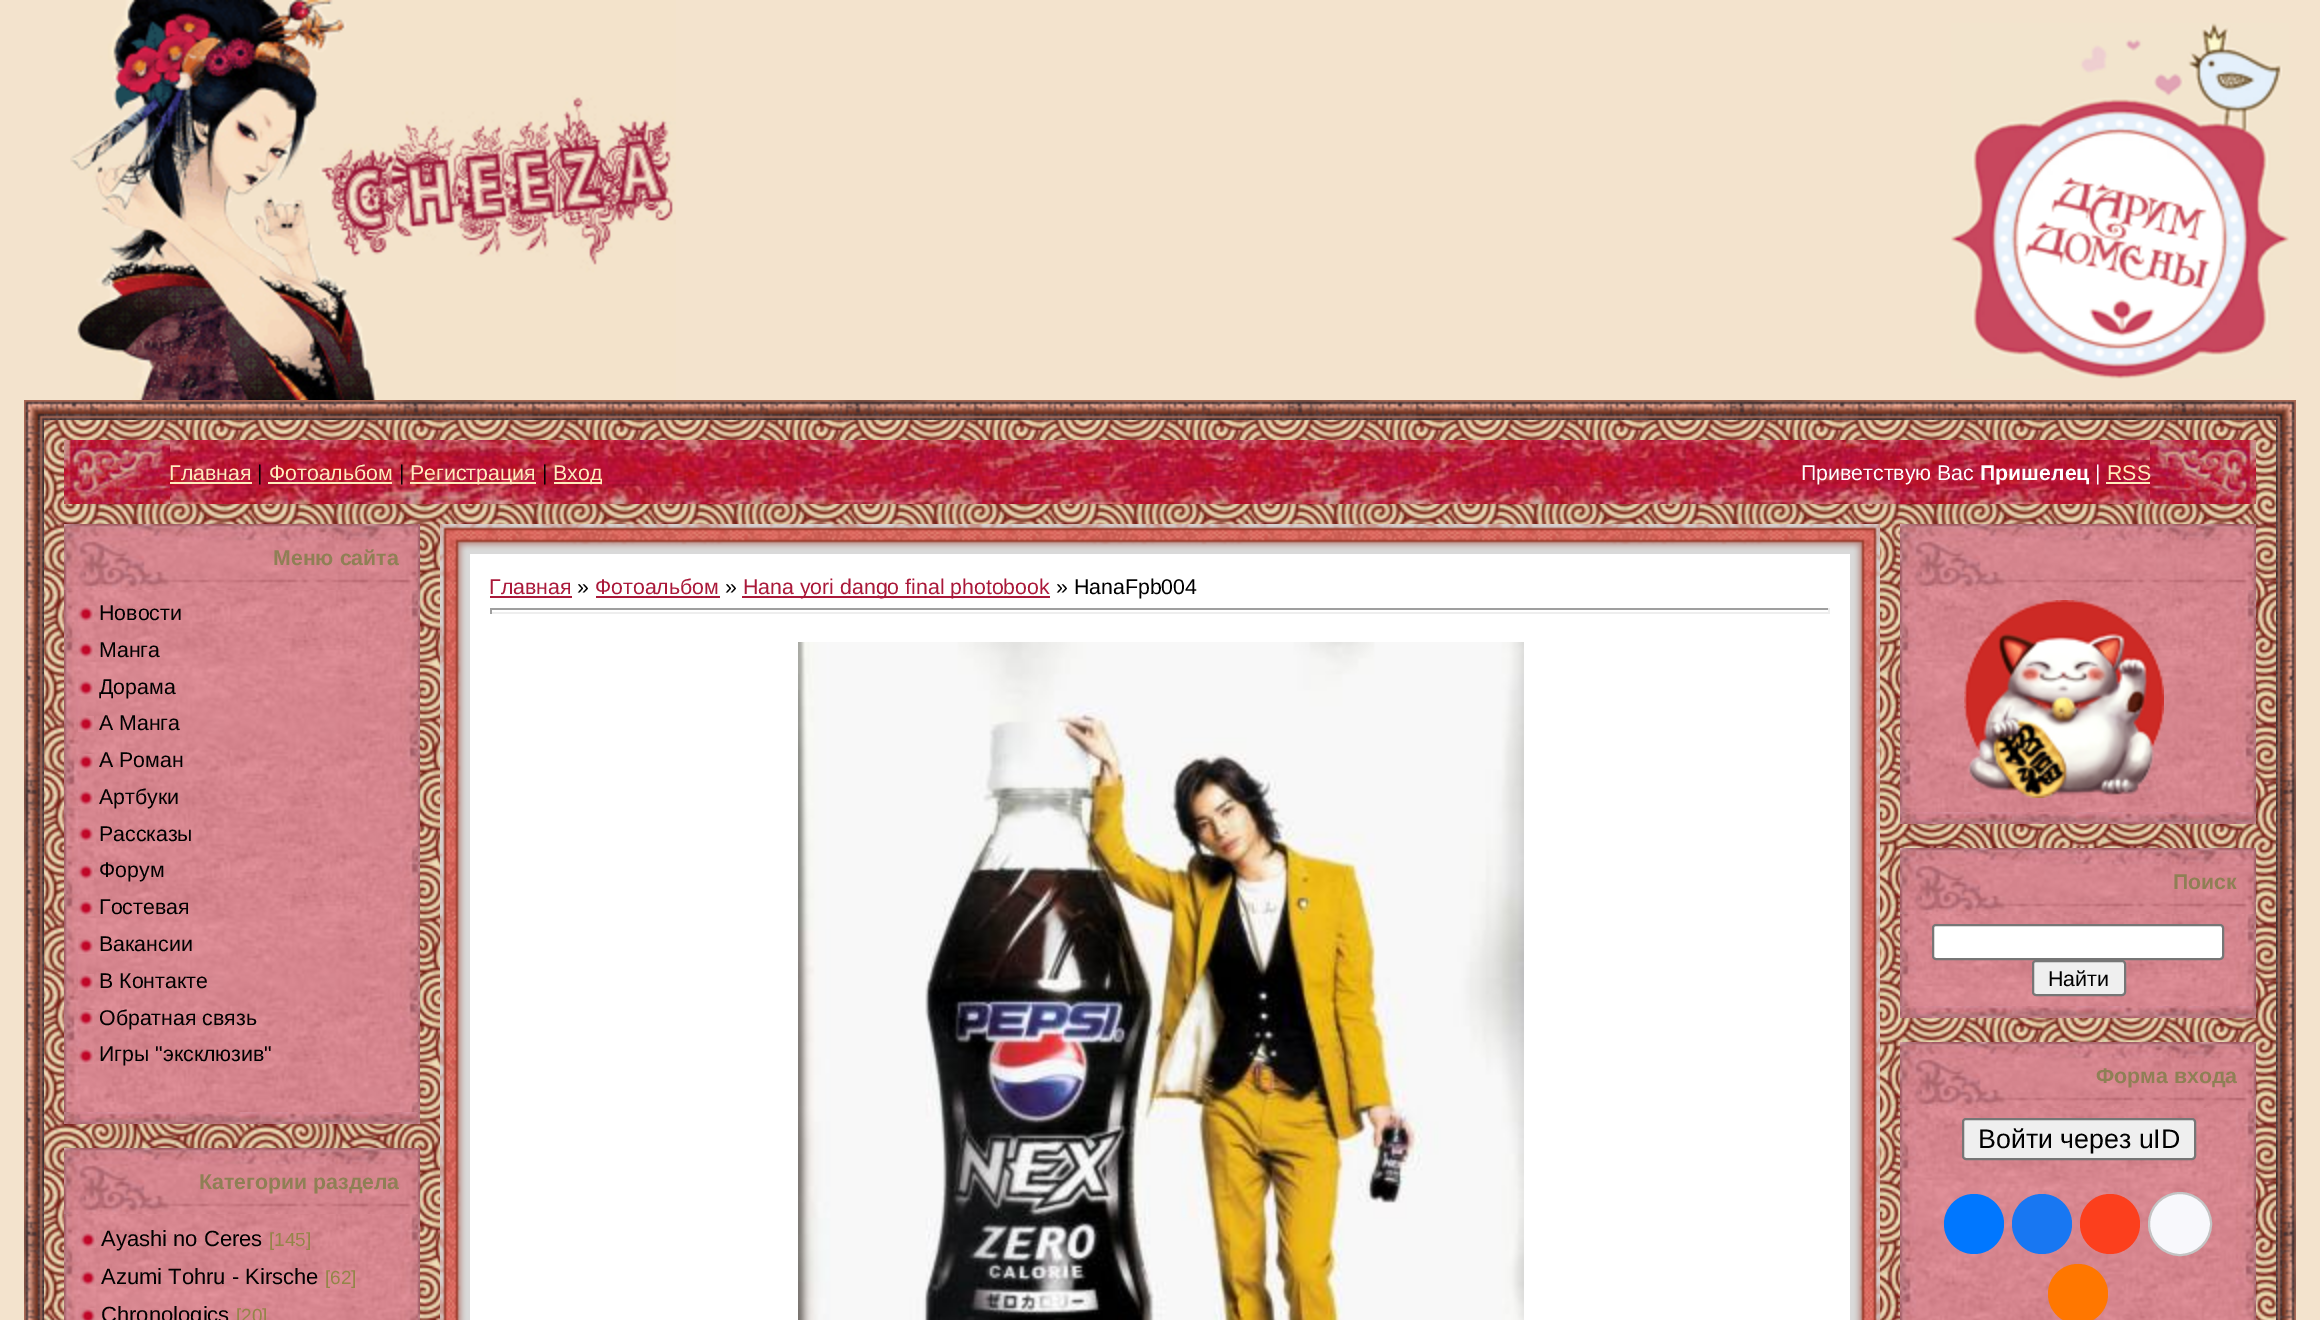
%!PS-Adobe-3.0
%%BoundingBox: 0 0 2320 1320
%%LanguageLevel: 3
%%Pages: 1
%%EndComments
%%BeginProlog
/rrect { 5 dict begin { /r /h /w /y /x } { exch def } forall
  x r add y moveto x w add y 2 copy h add r arct x w add y h add x 1 index r arct
  x y h add x y r arct x y 2 copy exch w add exch r arct closepath end } def
/drawimage { 5 dict begin { /h /w /y /x /name } { exch def } forall
  gsave x y translate w h scale
  w h 8 [w 0 0 h 0 0] name (r) file false 3 colorimage grestore end } def
%%EndProlog
%%BeginSetup
<< /PageSize [2320 1320] >> setpagedevice
%%EndSetup
%%Page: 1 1
0 1320 translate 1 -1 scale
4 setmiterlimit
0.953 0.89 0.804 setrgbcolor
0 0 2320 1320 rectfill
(images/1.raw) 70 0 606 400 drawimage
(images/2.raw) 1951 23 338 356 drawimage
(images/3.raw) 24 400 20 20 drawimage
(images/4.raw) 44 400 2232 20 drawimage
(images/5.raw) 2276 400 20 20 drawimage
(images/6.raw) 24 420 20 900 drawimage
(images/7.raw) 44 420 2232 900 drawimage
(images/8.raw) 170 440 1980 64 drawimage
(images/9.raw) 64 440 106 64 drawimage
1 0.925 0.741 setrgbcolor
170 482 82 2 rectfill
268 482 124 2 rectfill
410 482 126 2 rectfill
554 482 48 2 rectfill
2106 482 44 2 rectfill
(images/10.raw) 2150 440 106 64 drawimage
(images/11.raw) 64 524 356 66 drawimage
(images/12.raw) 64 590 356 522 drawimage
(images/13.raw) 78 606 16 16 drawimage
(images/13.raw) 78 642 16 16 drawimage
(images/13.raw) 78 680 16 16 drawimage
(images/13.raw) 78 716 16 16 drawimage
(images/13.raw) 78 754 16 16 drawimage
(images/13.raw) 78 790 16 16 drawimage
(images/13.raw) 78 826 16 16 drawimage
(images/13.raw) 78 864 16 16 drawimage
(images/13.raw) 78 900 16 16 drawimage
(images/13.raw) 78 938 16 16 drawimage
(images/13.raw) 78 974 16 16 drawimage
(images/13.raw) 78 1010 16 16 drawimage
(images/13.raw) 78 1048 16 16 drawimage
(images/14.raw) 64 1112 356 12 drawimage
(images/11.raw) 64 1148 356 66 drawimage
(images/15.raw) 64 1214 356 106 drawimage
(images/13.raw) 80 1232 16 16 drawimage
(images/13.raw) 80 1270 16 16 drawimage
(images/16.raw) 80 1308 16 12 drawimage
(images/17.raw) 440 524 30 30 drawimage
(images/18.raw) 470 524 1380 30 drawimage
(images/19.raw) 1850 524 30 30 drawimage
(images/20.raw) 440 554 30 766 drawimage
1 setgray
470 554 1380 766 rectfill
0.667 0.094 0.224 setrgbcolor
490 596 82 2 rectfill
596 596 124 2 rectfill
742 596 308 2 rectfill
0.624 setgray
490 608 1340 2 rectfill
0.933 setgray
1828 608 2 6 rectfill
490 612 1340 2 rectfill
0.624 setgray
490 608 2 6 rectfill
(images/21.raw) 798 642 726 678 drawimage
(images/22.raw) 1850 554 30 766 drawimage
(images/11.raw) 1900 524 356 66 drawimage
(images/23.raw) 1900 590 356 222 drawimage
(images/24.raw) 1964 600 200 198 drawimage
(images/14.raw) 1900 812 356 12 drawimage
(images/11.raw) 1900 848 356 66 drawimage
(images/25.raw) 1900 914 356 92 drawimage
1 setgray
1933 925 290 34 3 rrect gsave fill grestore
0.463 setgray
2 setlinewidth
stroke
0.937 setgray
2033 961 92 34 3 rrect gsave fill grestore
0.463 setgray
stroke
(images/14.raw) 1900 1006 356 12 drawimage
(images/11.raw) 1900 1042 356 66 drawimage
(images/26.raw) 1900 1108 356 212 drawimage
0.937 setgray
1963 1119 232 40 3 rrect gsave fill grestore
0.463 setgray
stroke
0 0.467 1 setrgbcolor
newpath 1974 1224 30 0 360 arc closepath fill
0.094 0.467 0.949 setrgbcolor
newpath 2042 1224 30 0 360 arc closepath fill
0.988 0.247 0.114 setrgbcolor
newpath 2110 1224 30 0 360 arc closepath fill
0.973 0.973 0.988 setrgbcolor
newpath 2180 1224 31 0 360 arc closepath gsave fill grestore
0.769 setgray
stroke
1 0.467 0 setrgbcolor
newpath 2078 1294 30 0 360 arc closepath fill
(images/27.raw) 2276 420 20 900 drawimage
/LiberationSans-Regular [21.3 0 0 -21.3 0 0] selectfont
1 0.925 0.741 setrgbcolor
169 480 moveto (Главная) show
0 setgray
257 480 moveto (|) show
1 0.925 0.741 setrgbcolor
269 480 moveto (Фотоальбом) show
0 setgray
399 480 moveto (|) show
1 0.925 0.741 setrgbcolor
410 480 moveto (Регистрация) show
0 setgray
542 480 moveto (|) show
1 0.925 0.741 setrgbcolor
553 480 moveto (Вход) show
1 setgray
1801 480 moveto (Приветствую Вас) show
/LiberationSans-Bold [21.3 0 0 -21.3 0 0] selectfont
1980 480 moveto (Пришелец) show
/LiberationSans-Regular [21.3 0 0 -21.3 0 0] selectfont
2095 480 moveto (|) show
1 0.925 0.741 setrgbcolor
2107 480 moveto (RSS) show
/LiberationSans-Bold [21.3 0 0 -21.3 0 0] selectfont
0.561 0.498 0.333 setrgbcolor
273 565 moveto (Меню сайта) show
/LiberationSans-Regular [21.3 0 0 -21.3 0 0] selectfont
0 setgray
99 620 moveto (Новости) show
99 657 moveto (Манга) show
99 694 moveto (Дорама) show
99 730 moveto (А Манга) show
99 767 moveto (А Роман) show
99 804 moveto (Артбуки) show
99 841 moveto (Рассказы) show
99 877 moveto (Форум) show
99 914 moveto (Гостевая) show
99 951 moveto (Вакансии) show
99 988 moveto (В Контакте) show
99 1025 moveto (Обратная связь) show
99 1061 moveto (Игры "эксклюзив") show
/LiberationSans-Bold [21.3 0 0 -21.3 0 0] selectfont
0.561 0.498 0.333 setrgbcolor
199 1189 moveto (Категории раздела) show
/LiberationSans-Regular [22 0 0 -22 0 0] selectfont
0 setgray
101 1246 moveto (Ayashi no Ceres) show
/LiberationSans-Regular [19 0 0 -19 0 0] selectfont
0.58 0.522 0.286 setrgbcolor
269 1246 moveto ([145]) show
/LiberationSans-Regular [22 0 0 -22 0 0] selectfont
0 setgray
101 1284 moveto (Azumi Tohru - Kirsche) show
/LiberationSans-Regular [19 0 0 -19 0 0] selectfont
0.58 0.522 0.286 setrgbcolor
325 1284 moveto ([62]) show
/LiberationSans-Regular [22 0 0 -22 0 0] selectfont
0 setgray
101 1322 moveto (Chronologics) show
/LiberationSans-Regular [19 0 0 -19 0 0] selectfont
0.58 0.522 0.286 setrgbcolor
236 1322 moveto ([20]) show
/LiberationSans-Regular [21.3 0 0 -21.3 0 0] selectfont
0.667 0.094 0.224 setrgbcolor
489 594 moveto (Главная) show
0 setgray
577 594 moveto (») show
0.667 0.094 0.224 setrgbcolor
595 594 moveto (Фотоальбом) show
0 setgray
725 594 moveto (») show
0.667 0.094 0.224 setrgbcolor
743 594 moveto (Hana yori dango final photobook) show
0 setgray
1056 594 moveto (» HanaFpb004) show
/LiberationSans-Bold [21.3 0 0 -21.3 0 0] selectfont
0.561 0.498 0.333 setrgbcolor
2173 889 moveto (Поиск) show
/LiberationSans-Regular [21.3 0 0 -21.3 0 0] selectfont
0 setgray
2048 986 moveto (Найти) show
/LiberationSans-Bold [21.3 0 0 -21.3 0 0] selectfont
0.561 0.498 0.333 setrgbcolor
2096 1083 moveto (Форма входа) show
/LiberationSans-Regular [26.75 0 0 -26.75 0 0] selectfont
0 setgray
1978 1148 moveto (Войти через uID) show
showpage
%%EOF
